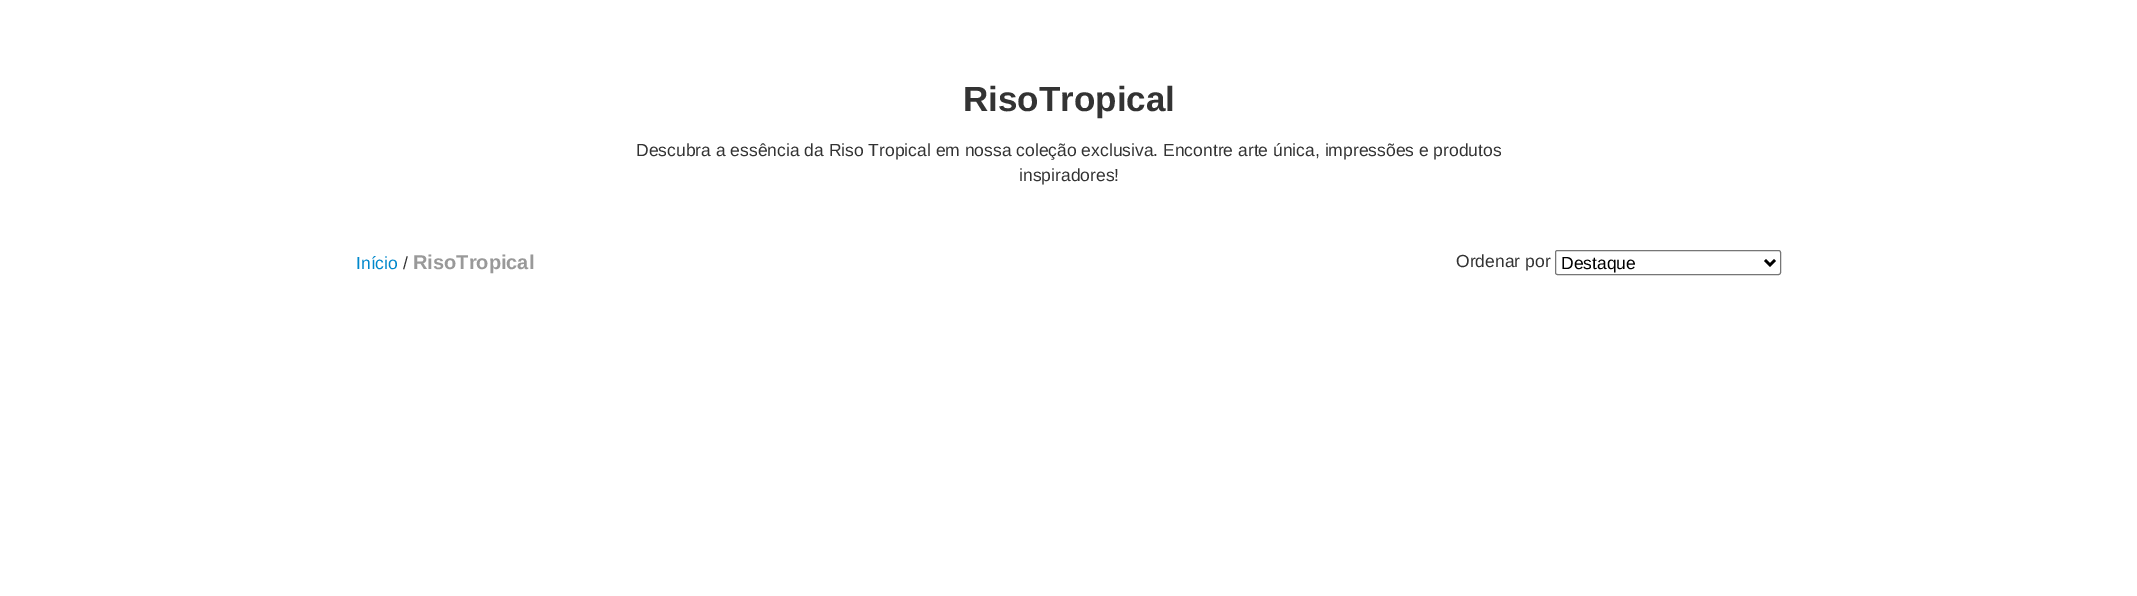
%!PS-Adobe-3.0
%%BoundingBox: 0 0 2137 596
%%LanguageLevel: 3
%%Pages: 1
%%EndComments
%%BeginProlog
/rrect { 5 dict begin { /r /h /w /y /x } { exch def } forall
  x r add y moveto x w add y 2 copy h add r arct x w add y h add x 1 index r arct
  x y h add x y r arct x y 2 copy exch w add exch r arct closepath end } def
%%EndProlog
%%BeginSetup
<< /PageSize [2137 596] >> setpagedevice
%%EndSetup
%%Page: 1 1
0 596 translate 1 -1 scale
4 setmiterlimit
1 setgray
0 0 2137 596 rectfill
0.463 setgray
1555.5 250.5 225 24 2 rrect stroke
0 setgray
2.5 setlinewidth
newpath 1765 260 moveto 1770 265 lineto 1775 260 lineto stroke
/LiberationSans-Bold [35 0 0 -35 0 0] selectfont
0.2 setgray
963 111 moveto (RisoTropical) show
/LiberationSans-Regular [17.5 0 0 -17.5 0 0] selectfont
636 156 moveto (Descubra a essência da Riso Tropical em nossa coleção exclusiva. Encontre arte única, impressões e produtos) show
1019 181 moveto (inspiradores!) show
0 0.533 0.8 setrgbcolor
356 269 moveto (Início) show
0.2 setgray
403 269 moveto (/) show
/LiberationSans-Bold [20 0 0 -20 0 0] selectfont
0.6 setgray
413 269 moveto (RisoTropical) show
/LiberationSans-Regular [17.5 0 0 -17.5 0 0] selectfont
0.2 setgray
1456 267 moveto (Ordenar por) show
0 setgray
1561 269 moveto (Destaque) show
showpage
%%EOF
